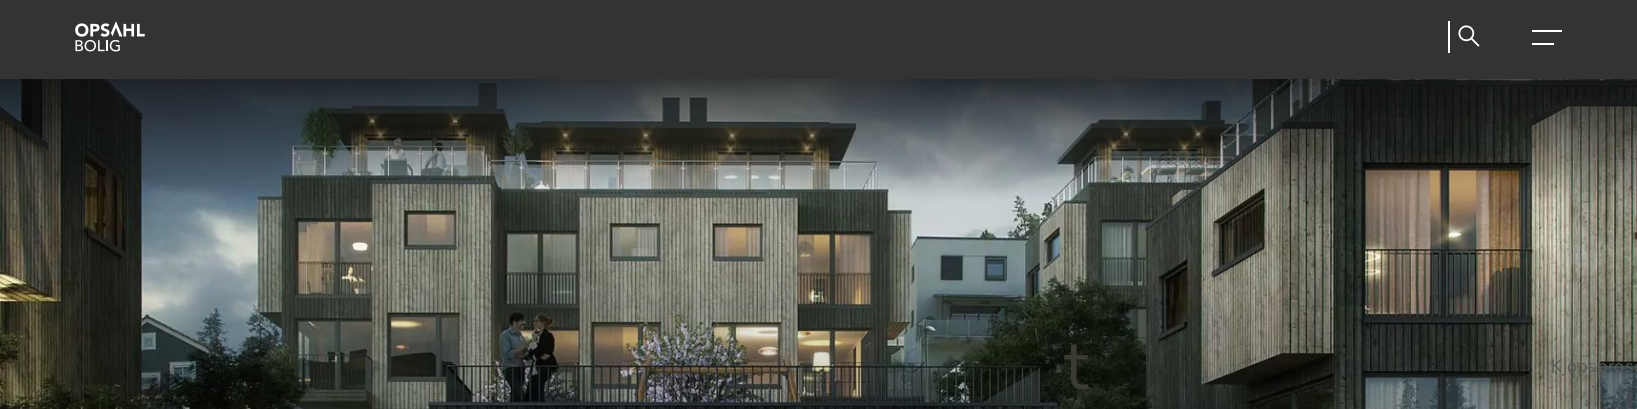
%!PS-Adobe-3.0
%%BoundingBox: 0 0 1637 409
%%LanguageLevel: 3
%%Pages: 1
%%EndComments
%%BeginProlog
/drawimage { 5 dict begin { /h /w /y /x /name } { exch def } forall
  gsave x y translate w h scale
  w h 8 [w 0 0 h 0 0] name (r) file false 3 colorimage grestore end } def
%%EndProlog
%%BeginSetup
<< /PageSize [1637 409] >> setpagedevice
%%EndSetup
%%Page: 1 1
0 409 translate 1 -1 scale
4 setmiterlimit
1 setgray
0 0 1637 409 rectfill
(images/1.raw) 0 79 1637 330 drawimage
0.2 setgray
0 0 1637 79 rectfill
(images/2.raw) 75 21 70 31 drawimage
1 setgray
1448 21 2 32 rectfill
(images/3.raw) 1458 25 22 22 drawimage
1532 30 30 2 rectfill
1532 43 22 2 rectfill
/NunitoSans-Regular [70 0 0 -70 0 0] selectfont
0.227 0.235 0.204 setrgbcolor
1064 389 moveto (t) show
/NunitoSans-Regular [18 0 0 -18 0 0] selectfont
0.353 0.361 0.337 setrgbcolor
1551 372 moveto 0.25 0 (Kjøpsprose) ashow
showpage
%%EOF
